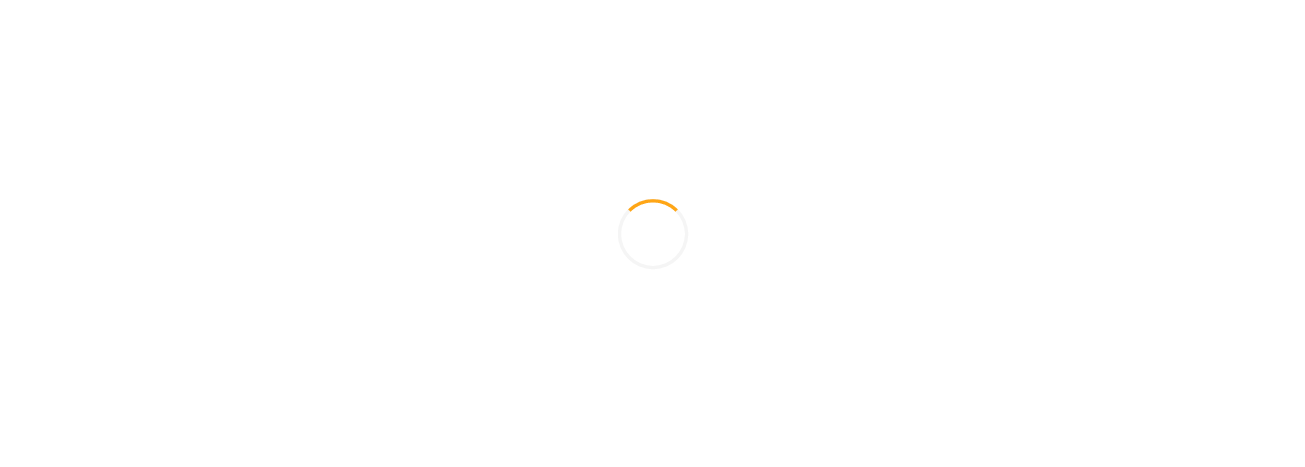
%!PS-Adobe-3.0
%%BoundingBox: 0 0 1305 467
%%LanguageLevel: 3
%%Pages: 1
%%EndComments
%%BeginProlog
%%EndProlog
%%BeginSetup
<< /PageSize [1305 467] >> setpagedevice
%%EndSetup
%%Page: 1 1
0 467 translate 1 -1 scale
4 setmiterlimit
1 setgray
0 0 1305 467 rectfill
0.961 setgray
3 setlinewidth
newpath 653 234 33.5 0 360 arc closepath stroke
1 0.651 0.086 setrgbcolor
newpath 629.5 210.5 moveto 642 197.5 664 197.5 676.5 210.5 curveto stroke
showpage
%%EOF
